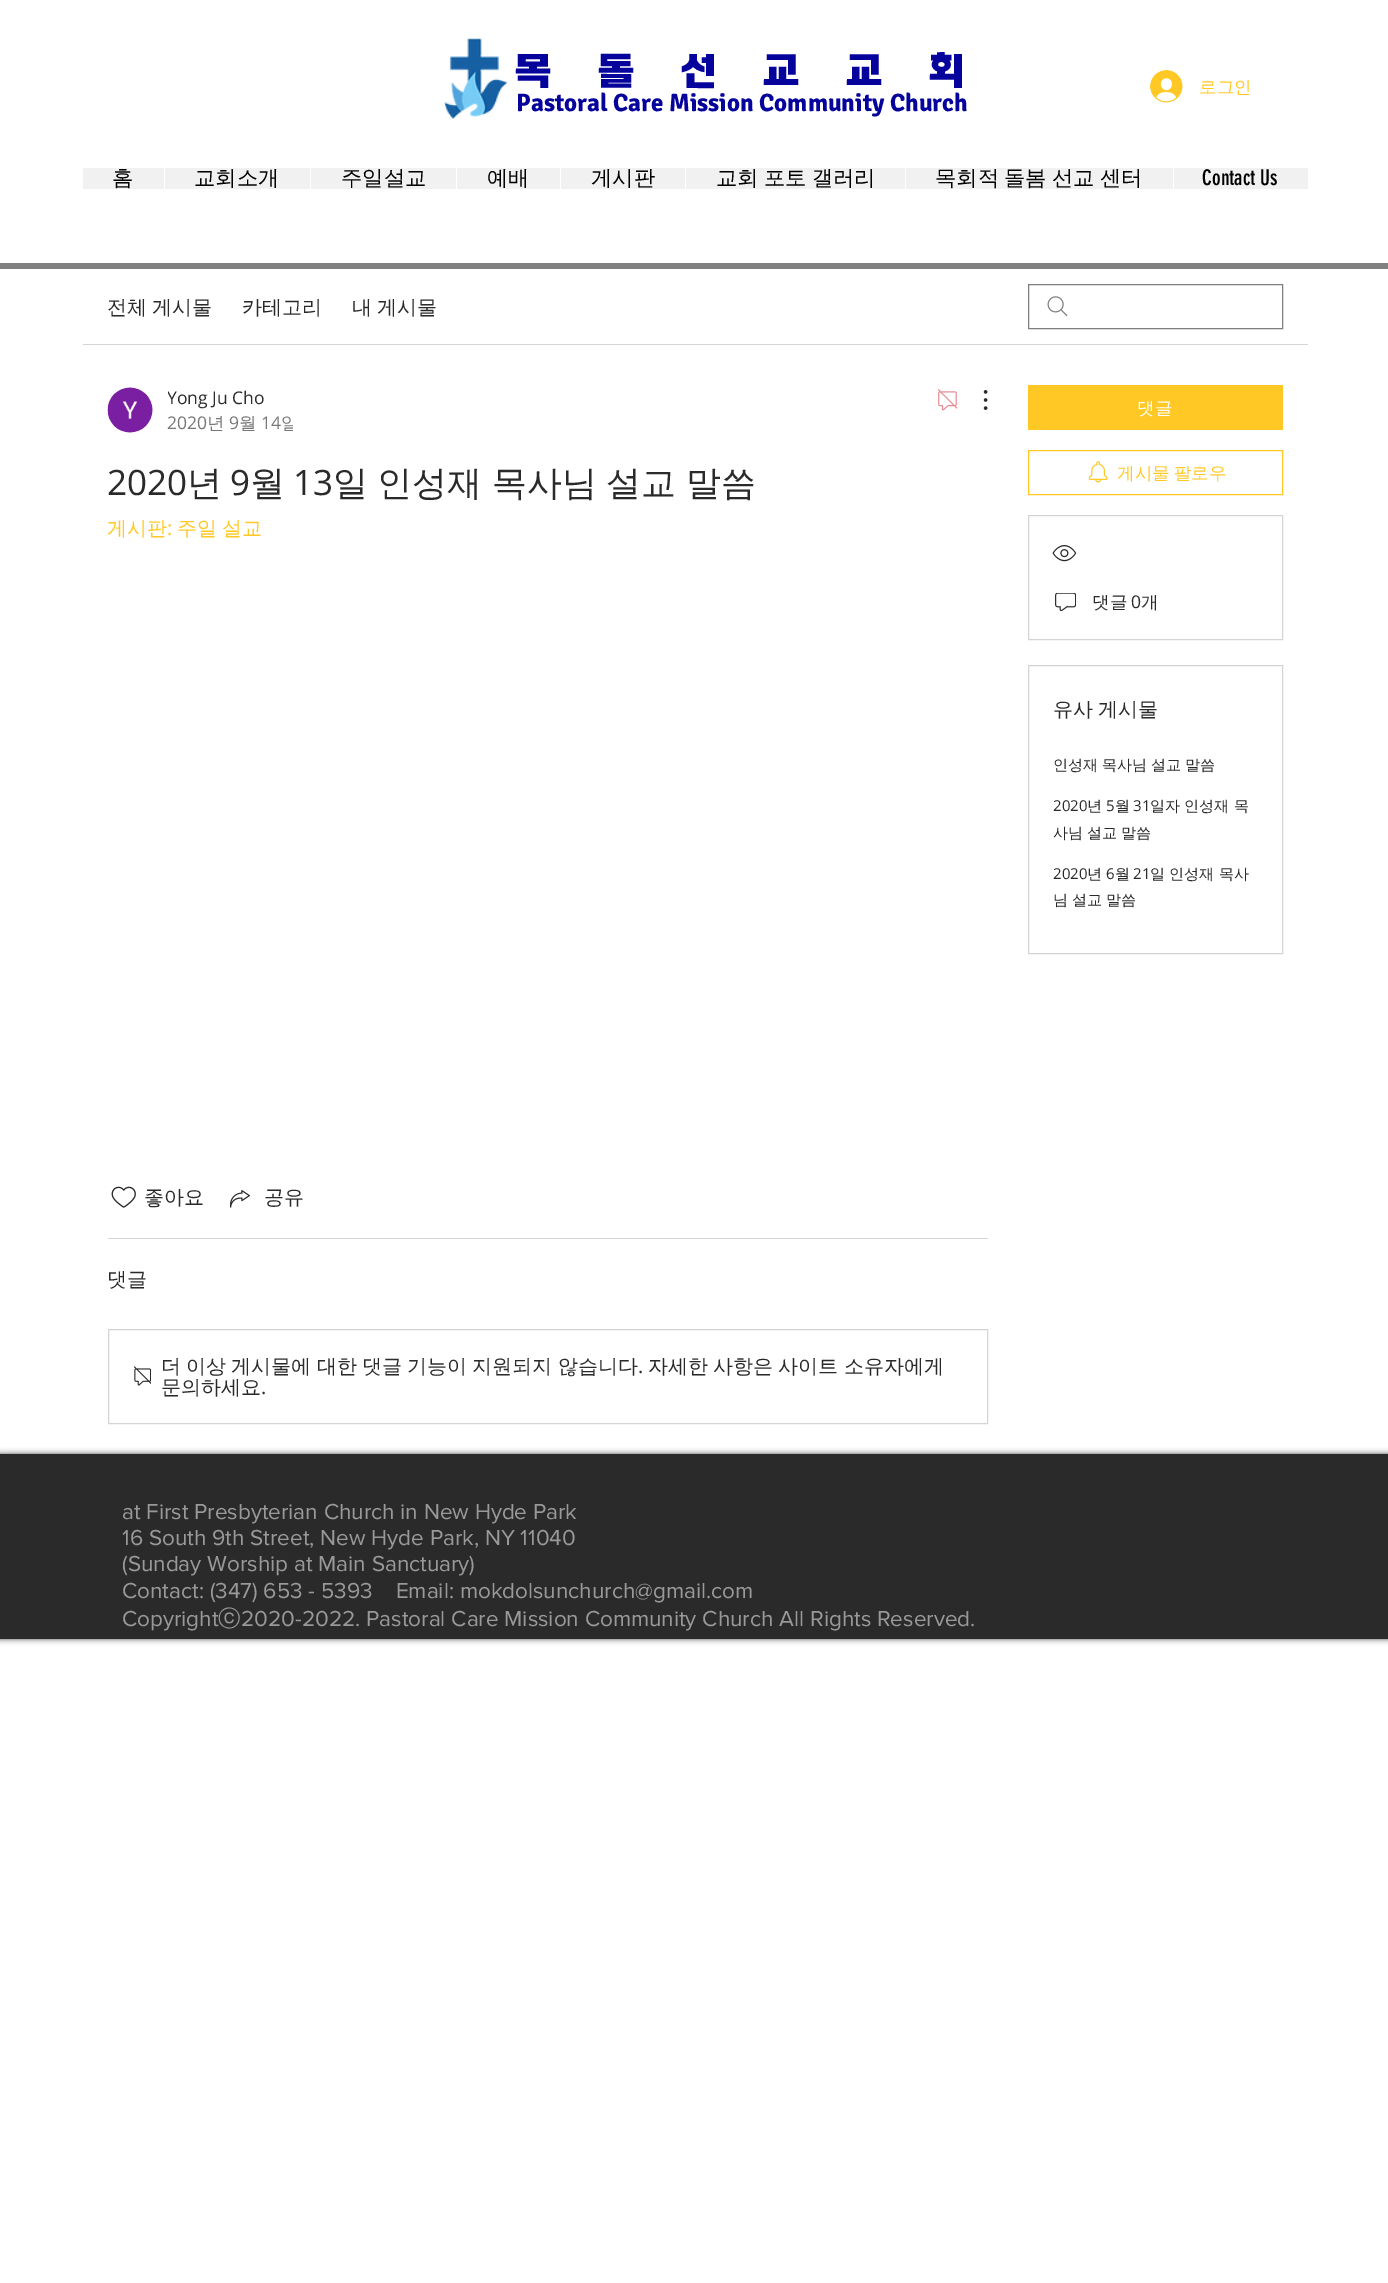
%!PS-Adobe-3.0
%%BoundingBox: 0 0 1388 2283
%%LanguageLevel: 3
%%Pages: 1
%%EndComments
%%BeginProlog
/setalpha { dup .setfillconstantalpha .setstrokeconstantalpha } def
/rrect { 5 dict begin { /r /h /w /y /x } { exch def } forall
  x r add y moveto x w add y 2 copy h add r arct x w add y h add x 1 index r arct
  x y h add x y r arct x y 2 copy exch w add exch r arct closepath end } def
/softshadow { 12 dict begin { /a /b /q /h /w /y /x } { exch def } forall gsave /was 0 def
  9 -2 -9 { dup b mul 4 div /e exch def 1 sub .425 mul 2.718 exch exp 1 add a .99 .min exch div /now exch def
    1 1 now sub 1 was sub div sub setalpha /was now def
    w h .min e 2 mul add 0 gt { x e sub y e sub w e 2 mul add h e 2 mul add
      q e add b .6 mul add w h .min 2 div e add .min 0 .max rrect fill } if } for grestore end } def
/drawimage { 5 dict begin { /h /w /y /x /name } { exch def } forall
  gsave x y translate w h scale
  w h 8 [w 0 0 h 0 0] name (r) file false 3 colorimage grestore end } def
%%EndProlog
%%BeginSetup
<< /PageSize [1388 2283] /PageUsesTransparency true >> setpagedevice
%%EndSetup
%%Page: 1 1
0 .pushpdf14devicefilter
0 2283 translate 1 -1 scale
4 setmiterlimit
1 setgray
0 0 1388 2283 rectfill
(images/1.raw) 443 38 65 81 drawimage
(images/2.raw) 1150 70 33 33 drawimage
0.945 setgray
83 168 1225 21 rectfill
1 setgray
164 168 1 21 rectfill
310 168 1 21 rectfill
456 168 1 21 rectfill
560 168 1 21 rectfill
685 168 1 21 rectfill
905 168 1 21 rectfill
1173 168 1 21 rectfill
0.502 setgray
0 263 1388 6 rectfill
0.831 setgray
83 344 1225 1 rectfill
(images/3.raw) 1047 296 21 21 drawimage
0.498 setgray
1028.5 284.5 254 44 rectstroke
(images/4.raw) 107 387 46 46 drawimage
(images/5.raw) 938 389 20 22 drawimage
(images/6.raw) 983 390 5 20 drawimage
(images/7.raw) 111 1186 25 22 drawimage
(images/8.raw) 230 1190 20 18 drawimage
0.831 setgray
108 1238 880 1 rectfill
108.5 1329.5 879 94 rectstroke
(images/9.raw) 134 1366 17 20 drawimage
1 0.784 0.141 setrgbcolor
1028 385 255 45 rectfill
1028.5 450.5 254 44 rectstroke
(images/10.raw) 1088 461 20 22 drawimage
0.831 setgray
1028.5 515.5 254 124 rectstroke
(images/11.raw) 1052 545 25 17 drawimage
(images/12.raw) 1055 593 21 18 drawimage
1028.5 665.5 254 288 rectstroke
0 setgray
0 1454 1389 185 0 3 0.7 softshadow
0.165 setgray
0 1454 1388 185 rectfill
/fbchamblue-Regular [40 0 0 -40 0 0] selectfont
0.024 0.012 0.612 setrgbcolor
513 85 moveto -2.6 0 (목) ashow
596 85 moveto -2.6 0 (돌) ashow
679 85 moveto -2.6 0 (선) ashow
761 85 moveto -2.6 0 (교) ashow
844 85 moveto -2.6 0 (교) ashow
927 85 moveto -2.6 0 (회) ashow
/Signika-Bold [25 0 0 -25 0 0] selectfont
516 111 moveto (Pastoral Care Mission Community Church) show
/WenQuanYiZenHei-Medium [17.5 0 0 -17.5 0 0] selectfont
1 0.784 0.141 setrgbcolor
1199 93 moveto (로그인) show
/WenQuanYiZenHei-Medium [21.25 0 0 -21.25 0 0] selectfont
0 setgray
112 185 moveto (홈) show
194 185 moveto (교회소개) show
341 185 moveto (주일설교) show
487 185 moveto (예배) show
591 185 moveto (게시판) show
716 185 moveto -1 0 32 (교회 포토 갤러리) widthshow
935 185 moveto -1 0 32 (목회적 돌봄 선교 센터) widthshow
/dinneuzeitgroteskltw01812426-Regular [21.25 0 0 -21.25 0 0] selectfont
1202 185 moveto (Contact Us) show
/WenQuanYiZenHei-Medium [20 0 0 -20 0 0] selectfont
0.165 setgray
107 314 moveto -1 0 32 (전체 게시물) widthshow
242 314 moveto (카테고리) show
352 314 moveto -1 0 32 (내 게시물) widthshow
gsave
168 385 97 25 rectclip
/OpenSans-Regular [17.5 0 0 -17.5 0 0] selectfont
167 404 moveto (Yong Ju Cho) show
grestore
/OpenSans-Regular [17.5 0 0 -17.5 0 0] selectfont
0.467 setgray
167 429 moveto (2020) show
/WenQuanYiZenHei-Medium [17.5 0 0 -17.5 0 0] selectfont
207 429 moveto (년) show
/OpenSans-Regular [17.5 0 0 -17.5 0 0] selectfont
229 429 moveto (9) show
/WenQuanYiZenHei-Medium [17.5 0 0 -17.5 0 0] selectfont
239 429 moveto (월) show
/OpenSans-Regular [17.5 0 0 -17.5 0 0] selectfont
261 429 moveto (14) show
gsave
153 385 140 50 rectclip
/WenQuanYiZenHei-Medium [17.5 0 0 -17.5 0 0] selectfont
281 429 moveto (일) show
grestore
/OpenSans-Regular [35 0 0 -35 0 0] selectfont
0.165 setgray
107 495 moveto (2020) show
/WenQuanYiZenHei-Medium [35 0 0 -35 0 0] selectfont
187 495 moveto (년) show
/OpenSans-Regular [35 0 0 -35 0 0] selectfont
230 495 moveto (9) show
/WenQuanYiZenHei-Medium [35 0 0 -35 0 0] selectfont
250 495 moveto (월) show
/OpenSans-Regular [35 0 0 -35 0 0] selectfont
293 495 moveto (13) show
/WenQuanYiZenHei-Medium [35 0 0 -35 0 0] selectfont
333 495 moveto -1 0 32 (일 인성재 목사님 설교 말씀) widthshow
/WenQuanYiZenHei-Medium [20 0 0 -20 0 0] selectfont
1 0.784 0.141 setrgbcolor
107 535 moveto (게시판) show
/OpenSans-Regular [20 0 0 -20 0 0] selectfont
167 535 moveto (:) show
/WenQuanYiZenHei-Medium [20 0 0 -20 0 0] selectfont
177 535 moveto -1 0 32 (주일 설교) widthshow
0.165 setgray
144 1204 moveto (좋아요) show
264 1204 moveto (공유) show
107 1286 moveto (댓글) show
161 1373 moveto -0.75 0 32 (더 이상 게시물에 대한 댓글 기능이 지원되지 않습니다) widthshow
/OpenSans-Regular [20 0 0 -20 0 0] selectfont
638 1373 moveto (.) show
/WenQuanYiZenHei-Medium [20 0 0 -20 0 0] selectfont
648 1373 moveto -0.75 0 32 (자세한 사항은 사이트 소유자에게) widthshow
161 1394 moveto (문의하세요) show
/OpenSans-Regular [20 0 0 -20 0 0] selectfont
261 1394 moveto (.) show
/WenQuanYiZenHei-Medium [17.5 0 0 -17.5 0 0] selectfont
1 setgray
1137 414 moveto (댓글) show
1 0.784 0.141 setrgbcolor
1117 479 moveto -1 0 32 (게시물 팔로우) widthshow
0.165 setgray
1092 608 moveto (댓글) show
/OpenSans-Regular [17.5 0 0 -17.5 0 0] selectfont
1131 608 moveto (0) show
/WenQuanYiZenHei-Medium [17.5 0 0 -17.5 0 0] selectfont
1141 608 moveto (개) show
/WenQuanYiZenHei-Medium [20 0 0 -20 0 0] selectfont
1053 716 moveto -1 0 32 (유사 게시물) widthshow
/WenQuanYiZenHei-Medium [15 0 0 -15 0 0] selectfont
1053 770 moveto -0.5 0 32 (인성재 목사님 설교 말씀) widthshow
/OpenSans-Regular [15 0 0 -15 0 0] selectfont
1053 811 moveto (2020) show
/WenQuanYiZenHei-Medium [15 0 0 -15 0 0] selectfont
1087 811 moveto (년) show
/OpenSans-Regular [15 0 0 -15 0 0] selectfont
1106 811 moveto (5) show
/WenQuanYiZenHei-Medium [15 0 0 -15 0 0] selectfont
1115 811 moveto (월) show
/OpenSans-Regular [15 0 0 -15 0 0] selectfont
1133 811 moveto (31) show
/WenQuanYiZenHei-Medium [15 0 0 -15 0 0] selectfont
1150 811 moveto (일자 인성재 목) show
1053 838 moveto -0.5 0 32 (사님 설교 말씀) widthshow
/OpenSans-Regular [15 0 0 -15 0 0] selectfont
1053 879 moveto (2020) show
/WenQuanYiZenHei-Medium [15 0 0 -15 0 0] selectfont
1087 879 moveto (년) show
/OpenSans-Regular [15 0 0 -15 0 0] selectfont
1106 879 moveto (6) show
/WenQuanYiZenHei-Medium [15 0 0 -15 0 0] selectfont
1115 879 moveto (월) show
/OpenSans-Regular [15 0 0 -15 0 0] selectfont
1133 879 moveto (21) show
/WenQuanYiZenHei-Medium [15 0 0 -15 0 0] selectfont
1150 879 moveto (일 인성재 목사) show
1053 905 moveto -0.5 0 32 (님 설교 말씀) widthshow
/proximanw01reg-Regular [22.5 0 0 -22.5 0 0] selectfont
0.6 setgray
122 1519 moveto (at First Presbyterian Church in New Hyde Park) show
122 1545 moveto (16 South 9th Street, New Hyde Park, NY 11040) show
122 1571 moveto (\(Sunday Worship at Main Sanctuary\)) show
122 1598 moveto (Contact: \(347\) 653 - 5393    Email: mokdolsunchurch@gmail.com) show
122 1626 moveto (Copyright) show
/WenQuanYiZenHei-Medium [22.5 0 0 -22.5 0 0] selectfont
218 1626 moveto (ⓒ) show
/proximanw01reg-Regular [22.5 0 0 -22.5 0 0] selectfont
241 1626 moveto (2020-2022. Pastoral Care Mission Community Church All Rights Reserved.) show
.poppdf14devicefilter showpage
%%EOF
